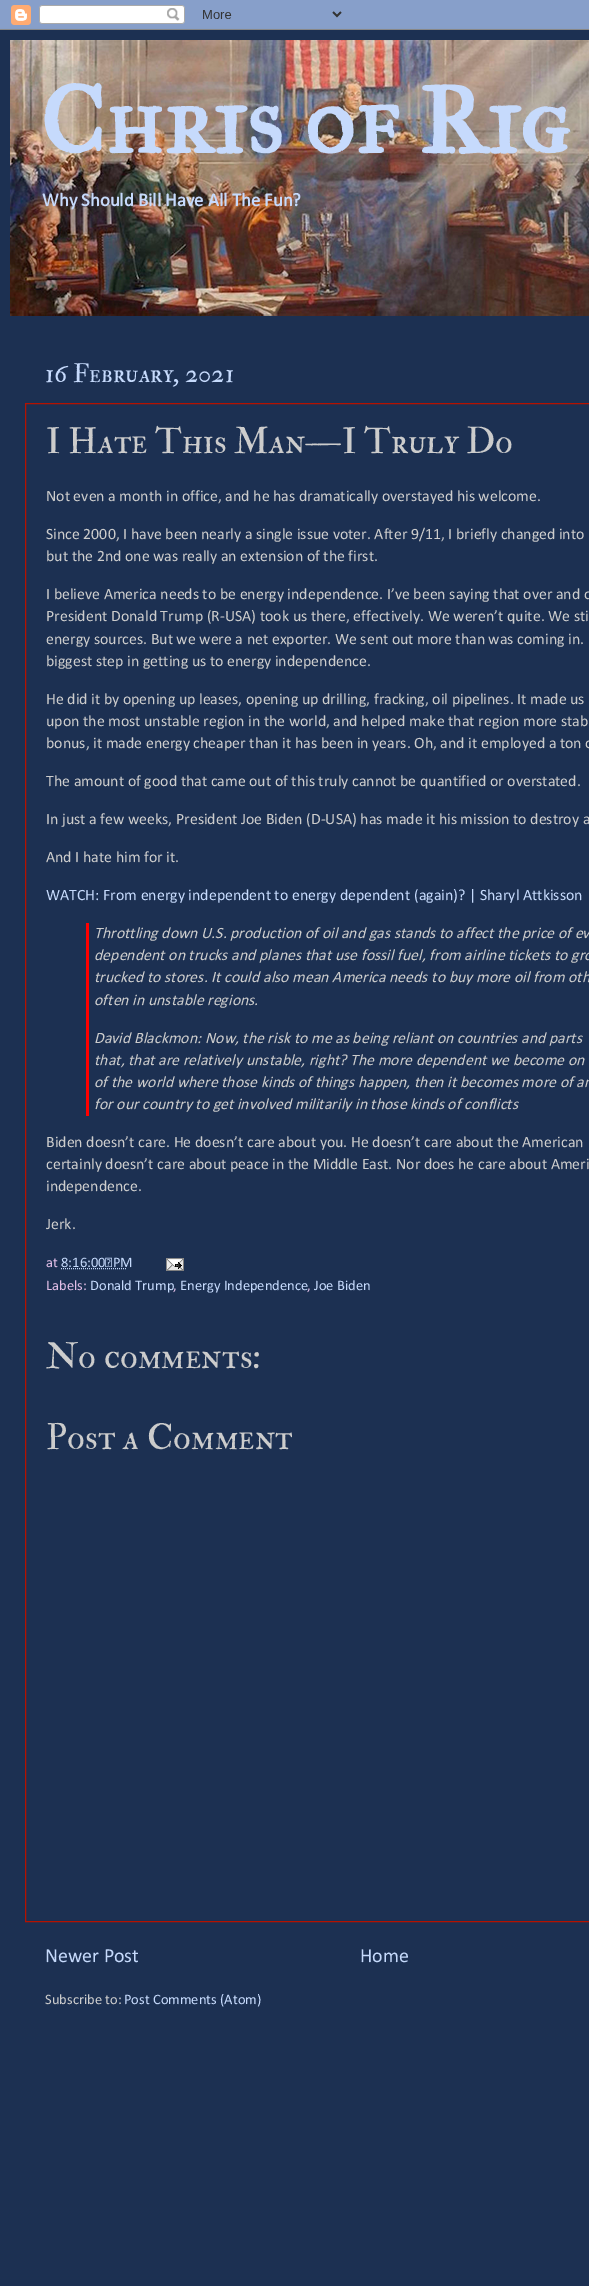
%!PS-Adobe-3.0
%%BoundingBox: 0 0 589 2286
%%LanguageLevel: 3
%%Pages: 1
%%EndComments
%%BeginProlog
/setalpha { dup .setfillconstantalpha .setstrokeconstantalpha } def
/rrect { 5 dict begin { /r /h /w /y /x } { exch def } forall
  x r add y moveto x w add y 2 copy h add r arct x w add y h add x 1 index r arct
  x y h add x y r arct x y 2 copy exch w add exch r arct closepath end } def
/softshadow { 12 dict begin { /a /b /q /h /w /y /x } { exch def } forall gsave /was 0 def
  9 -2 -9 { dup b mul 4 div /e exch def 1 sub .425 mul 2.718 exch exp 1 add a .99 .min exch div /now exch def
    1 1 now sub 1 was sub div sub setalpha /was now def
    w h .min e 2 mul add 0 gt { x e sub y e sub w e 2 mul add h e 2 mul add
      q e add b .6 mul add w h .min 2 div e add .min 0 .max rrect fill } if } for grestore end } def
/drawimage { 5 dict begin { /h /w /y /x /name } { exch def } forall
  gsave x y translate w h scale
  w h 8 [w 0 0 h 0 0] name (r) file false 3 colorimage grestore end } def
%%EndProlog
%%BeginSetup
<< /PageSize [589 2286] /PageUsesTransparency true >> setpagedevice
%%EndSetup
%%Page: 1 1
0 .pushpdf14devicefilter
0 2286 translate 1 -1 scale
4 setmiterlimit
0.216 0.373 0.651 setrgbcolor
0 0 589 2286 rectfill
0 setgray
0 30 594 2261 0 1.5 0.15 softshadow
(images/1.raw) 0 0 589 30 drawimage
0.11 0.188 0.322 setrgbcolor
0 30 589 2256 rectfill
(images/2.raw) 10 40 579 276 drawimage
0.71 0.071 0 setrgbcolor
25.5 403.5 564 1518 rectstroke
1 0 0 setrgbcolor
86 923 3 193 rectfill
0.776 0.855 0.988 setrgbcolor
[1 1] 0 setdash
newpath 61 1268.5 moveto 126.5 1268.5 lineto stroke
(images/3.raw) 166 1258 18 13 drawimage
/IMFELLGreatPrimerSC-Bold [96 0 0 -96 0 0] selectfont
40 153 moveto (Chris of Rig) show
/Calibri-Bold [18.75 0 0 -18.75 0 0] selectfont
42 206 moveto (Why Should Bill Have All The Fun?) show
/IMFELLDoublePicaSC-Regular [26 0 0 -26 0 0] selectfont
45 382 moveto (16 February, 2021) show
/IMFELLDoublePicaSC-Regular [36 0 0 -36 0 0] selectfont
0.8 setgray
46 453 moveto (I Hate This Man—I Truly Do) show
/Calibri-Regular [15.85 0 0 -15.85 0 0] selectfont
46 501 moveto (Not even a month in office, and he has dramatically overstayed his welcome.) show
46 539 moveto (Since 2000, I have been nearly a single issue voter. After 9/11, I briefly changed into) show
46 561 moveto (but the 2nd one was really an extension of the first.) show
46 599 moveto (I believe America needs to be energy independence. I’ve been saying that over and o) show
46 621 moveto (President Donald Trump \(R-USA\) took us there, effectively. We weren’t quite. We sti) show
46 644 moveto (energy sources. But we were a net exporter. We sent out more than was coming in.) show
46 666 moveto (biggest step in getting us to energy independence.) show
46 704 moveto (He did it by opening up leases, opening up drilling, fracking, oil pipelines. It made us) show
46 726 moveto (upon the most unstable region in the world, and helped make that region more stab) show
46 748 moveto (bonus, it made energy cheaper than it has been in years. Oh, and it employed a ton o) show
46 786 moveto (The amount of good that came out of this truly cannot be quantified or overstated.) show
46 824 moveto (In just a few weeks, President Joe Biden \(D-USA\) has made it his mission to destroy a) show
46 862 moveto (And I hate him for it.) show
0.776 0.855 0.988 setrgbcolor
46 900 moveto (WATCH: From energy independent to energy dependent \(again\)? | Sharyl Attkisson) show
/Calibri-Italic [15.85 0 0 -15.85 0 0] selectfont
0.8 setgray
94 938 moveto (Throttling down U.S. production of oil and gas stands to affect the price of ev) show
94 960 moveto (dependent on trucks and planes that use fossil fuel, from airline tickets to gro) show
94 982 moveto (trucked to stores. It could also mean America needs to buy more oil from oth) show
94 1005 moveto (often in unstable regions.) show
94 1043 moveto (David Blackmon: Now, the risk to me as being reliant on countries and parts) show
94 1065 moveto (that, that are relatively unstable, right? The more dependent we become on) show
94 1087 moveto (of the world where those kinds of things happen, then it becomes more of an) show
94 1109 moveto (for our country to get involved militarily in those kinds of conflicts) show
/Calibri-Regular [15.85 0 0 -15.85 0 0] selectfont
46 1147 moveto (Biden doesn’t care. He doesn’t care about you. He doesn’t care about the American) show
46 1169 moveto (certainly doesn’t care about peace in the Middle East. Nor does he care about Ameri) show
46 1191 moveto (independence.) show
46 1229 moveto (Jerk.) show
/Calibri-Regular [14.5 0 0 -14.5 0 0] selectfont
0.882 0.745 0.906 setrgbcolor
46 1267 moveto (at) show
0.776 0.855 0.988 setrgbcolor
61 1267 moveto (8:16:00 PM) show
0.882 0.745 0.906 setrgbcolor
46 1290 moveto (Labels:) show
0.776 0.855 0.988 setrgbcolor
90 1290 moveto (Donald Trump) show
0.882 0.745 0.906 setrgbcolor
173 1290 moveto (,) show
0.776 0.855 0.988 setrgbcolor
180 1290 moveto (Energy Independence) show
0.882 0.745 0.906 setrgbcolor
307 1290 moveto (,) show
0.776 0.855 0.988 setrgbcolor
314 1290 moveto (Joe Biden) show
/IMFELLDoublePicaSC-Regular [36 0 0 -36 0 0] selectfont
0.8 setgray
46 1368 moveto (No comments:) show
46 1449 moveto (Post a Comment) show
/Calibri-Regular [20 0 0 -20 0 0] selectfont
0.776 0.855 0.988 setrgbcolor
45 1962 moveto (Newer Post) show
360 1962 moveto (Home) show
/Calibri-Regular [14.5 0 0 -14.5 0 0] selectfont
0.8 setgray
45 2004 moveto (Subscribe to:) show
0.776 0.855 0.988 setrgbcolor
124 2004 moveto (Post Comments \(Atom\)) show
.poppdf14devicefilter showpage
%%EOF
